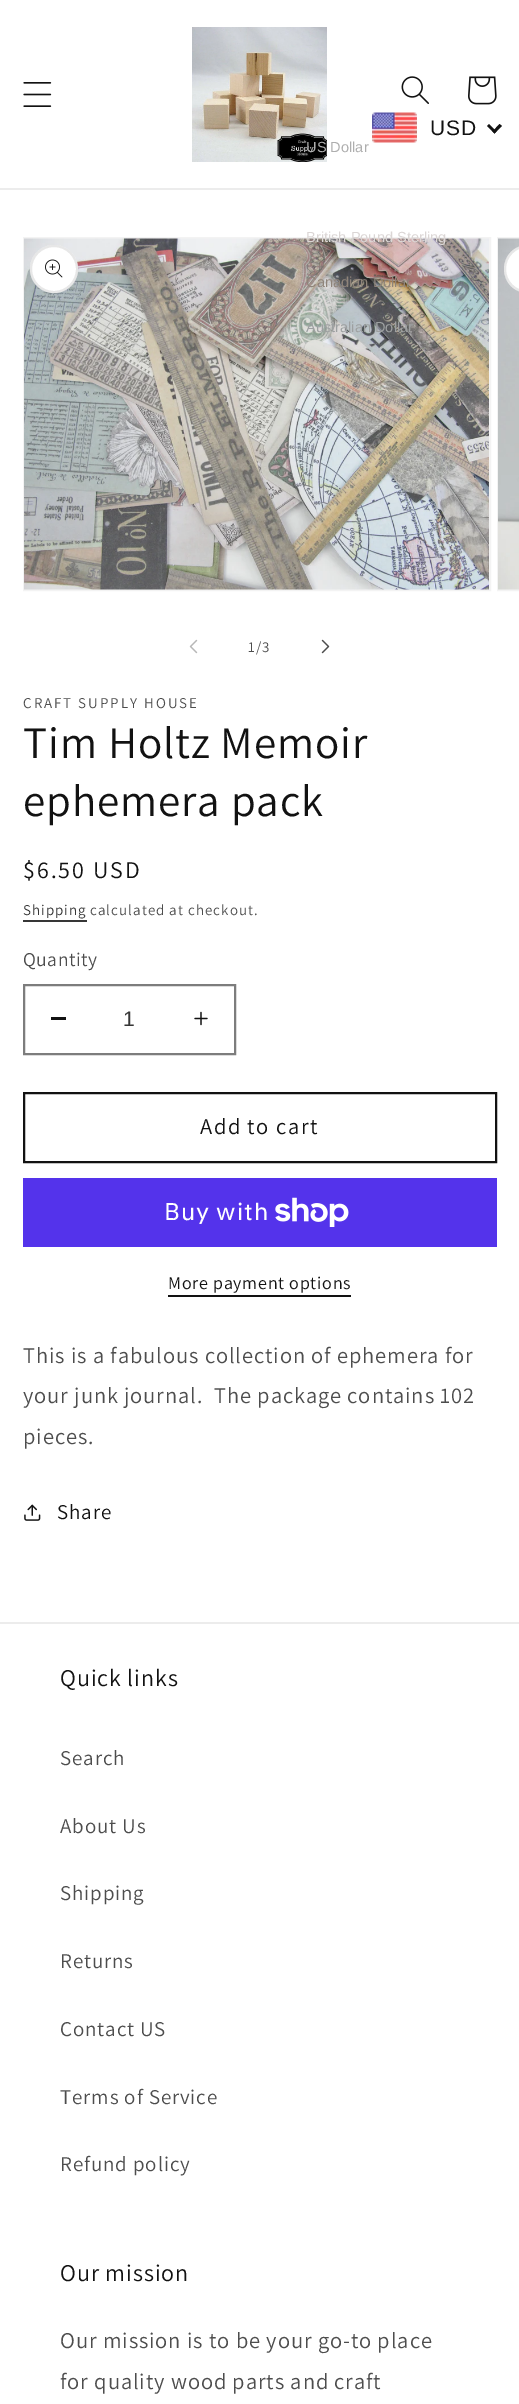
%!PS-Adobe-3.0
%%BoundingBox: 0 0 519 2404
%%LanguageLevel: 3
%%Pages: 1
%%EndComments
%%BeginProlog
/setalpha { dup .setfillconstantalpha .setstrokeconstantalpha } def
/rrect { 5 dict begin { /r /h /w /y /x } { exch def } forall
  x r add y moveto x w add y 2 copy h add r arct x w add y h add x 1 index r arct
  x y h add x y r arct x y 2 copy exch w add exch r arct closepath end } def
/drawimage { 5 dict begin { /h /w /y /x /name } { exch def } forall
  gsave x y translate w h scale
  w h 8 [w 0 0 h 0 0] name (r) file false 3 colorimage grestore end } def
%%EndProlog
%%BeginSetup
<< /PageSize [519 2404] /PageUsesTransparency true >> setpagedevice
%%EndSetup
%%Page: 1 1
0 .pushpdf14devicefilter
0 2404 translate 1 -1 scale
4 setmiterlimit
1 setgray
0 0 519 2404 rectfill
0.925 setgray
0 188 519 2 rectfill
(images/1.raw) 23 82 29 25 drawimage
(images/2.raw) 192 27 135 135 drawimage
(images/3.raw) 401 76 28 28 drawimage
(images/4.raw) 468 76 29 29 drawimage
(images/5.raw) 372 112 45 31 drawimage
0.071 setgray
newpath 499.5 124 moveto 502 126 lineto 494.5 133.5 lineto 492.5 131.5 lineto closepath fill
newpath 489 124 moveto 496.5 131.5 lineto 494.5 133.5 lineto 487 126 lineto closepath fill
0.953 setgray
2 setlinewidth
24 238 466 352 rectstroke
(images/6.raw) 24 238 465 352 drawimage
1 setgray
newpath 54 269 24 0 360 arc closepath fill
0.1 setalpha
0.071 setgray
newpath 54 269 23 0 360 arc closepath stroke
1 setalpha
(images/7.raw) 45 259 18 19 drawimage
0.953 setgray
498 238 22 352 rectstroke
(images/8.raw) 498 238 21 352 drawimage
1 setgray
newpath 528 245 moveto 519 245 lineto 519 293 lineto 528 293 lineto 514.5 293 504 282.5 504 269 curveto 504 255.5 514.5 245 528 245 curveto closepath fill
0.1 setalpha
0.071 setgray
505 246 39 46 23 rrect stroke
1 setalpha
(images/9.raw) 189 639 9 15 drawimage
(images/10.raw) 321 639 9 15 drawimage
0.212 setgray
23 920 64 2 rectfill
0.071 setgray
51 1017 15 3 rectfill
(images/11.raw) 194 1011 14 15 drawimage
0.49 setgray
24 985 211 69 rectstroke
0.071 setgray
24 1093 472 69 rectstroke
0.329 0.2 0.922 setrgbcolor
23 1178 474 69 rectfill
(images/12.raw) 275 1197 74 30 drawimage
0.071 setgray
168 1295 183 2 rectfill
(images/13.raw) 24 1504 17 17 drawimage
0.925 setgray
0 1622 519 2 rectfill
/LiberationSans-Regular [21 0 0 -21 0 0] selectfont
0.071 setgray
430 135 moveto 0.9 0 (USD) ashow
/LiberationSans-Regular [14.6 0 0 -14.6 0 0] selectfont
0.682 setgray
306 152 moveto (US Dollar) show
0.859 0.839 0.835 setrgbcolor
306 242 moveto (British Pound Sterling) show
0.561 0.518 0.478 setrgbcolor
306 287 moveto (Canadian Dollar) show
0.616 0.627 0.631 setrgbcolor
306 332 moveto (Australian Dollar) show
/Assistant-Regular [15 0 0 -15 0 0] selectfont
0.302 setgray
248 652 moveto 1.05 0 (1/3) ashow
23 708 moveto 2 0 (CRAFT SUPPLY HOUSE) ashow
/Assistant-Regular [45 0 0 -45 0 0] selectfont
0.071 setgray
23 758 moveto 0.9 0 (Tim Holtz Memoir) ashow
23 816 moveto 0.9 0 (ephemera pack) ashow
/Assistant-Regular [24 0 0 -24 0 0] selectfont
23 878 moveto 2 0 ($6.50 USD) ashow
/Assistant-Regular [15 0 0 -15 0 0] selectfont
0.212 setgray
23 915 moveto 1.05 0 (Shipping) ashow
0.302 setgray
90 915 moveto 1.05 0 (calculated at checkout.) ashow
/Assistant-Regular [19.5 0 0 -19.5 0 0] selectfont
23 966 moveto 0.5 0 (Quantity) ashow
/LiberationSans-Regular [21 0 0 -21 0 0] selectfont
0.212 setgray
123 1026 moveto (1) show
/Assistant-Regular [22.5 0 0 -22.5 0 0] selectfont
0.071 setgray
200 1134 moveto 1.5 0 (Add to cart) ashow
/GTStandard-Regular [24 0 0 -24 0 0] selectfont
1 setgray
164 1220 moveto 0.9 0 (Buy with) ashow
/Assistant-Regular [18 0 0 -18 0 0] selectfont
0.071 setgray
168 1289 moveto 0.75 0 (More payment options) ashow
/Assistant-Regular [22.5 0 0 -22.5 0 0] selectfont
0.302 setgray
23 1363 moveto 0.9 0 (This is a fabulous collection of ephemera for) ashow
23 1403 moveto 0.9 0 (your junk journal.  The package contains 102) ashow
23 1444 moveto 0.9 0 (pieces.) ashow
/Assistant-Regular [21 0 0 -21 0 0] selectfont
0.071 setgray
57 1519 moveto 0.9 0 (Share) ashow
/Assistant-Regular [24 0 0 -24 0 0] selectfont
60 1686 moveto 0.9 0 (Quick links) ashow
/Assistant-Regular [21 0 0 -21 0 0] selectfont
0.302 setgray
60 1765 moveto 0.9 0 (Search) ashow
60 1833 moveto 0.9 0 (About Us) ashow
60 1900 moveto 0.9 0 (Shipping) ashow
60 1968 moveto 0.9 0 (Returns) ashow
60 2036 moveto 0.9 0 (Contact US) ashow
60 2104 moveto 0.9 0 (Terms of Service) ashow
60 2171 moveto 0.9 0 (Refund policy) ashow
/Assistant-Regular [24 0 0 -24 0 0] selectfont
0.071 setgray
60 2281 moveto 0.9 0 (Our mission) ashow
/Assistant-Regular [22.5 0 0 -22.5 0 0] selectfont
0.302 setgray
60 2348 moveto 0.9 0 (Our mission is to be your go-to place) ashow
60 2389 moveto 0.9 0 (for quality wood parts and craft) ashow
.poppdf14devicefilter showpage
%%EOF
